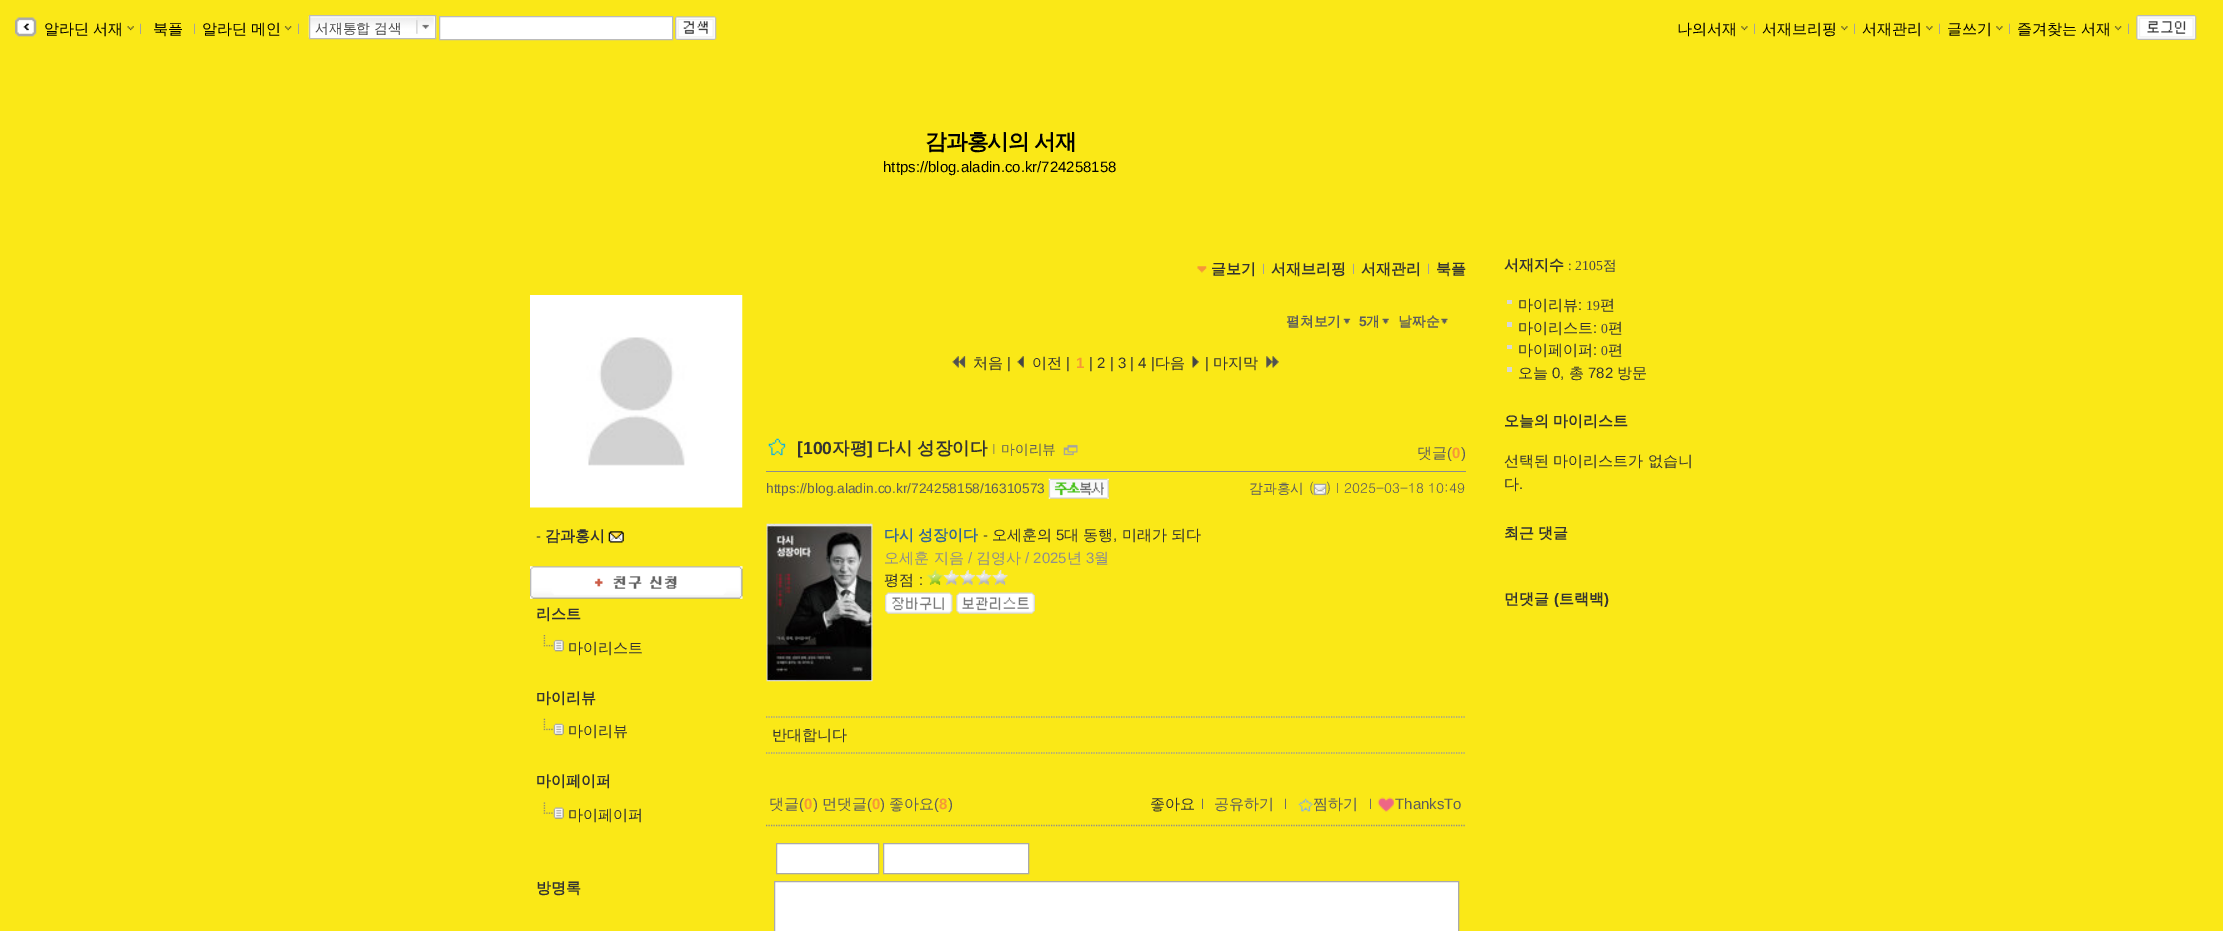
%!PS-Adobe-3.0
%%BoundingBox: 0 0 2223 931
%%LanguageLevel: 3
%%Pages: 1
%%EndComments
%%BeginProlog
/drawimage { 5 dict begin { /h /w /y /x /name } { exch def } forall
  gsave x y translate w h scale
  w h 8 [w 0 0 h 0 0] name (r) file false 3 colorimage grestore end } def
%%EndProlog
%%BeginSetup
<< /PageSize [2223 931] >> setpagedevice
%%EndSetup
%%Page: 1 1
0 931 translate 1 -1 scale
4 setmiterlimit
0.98 0.91 0.09 setrgbcolor
0 0 2223 931 rectfill
(images/1.raw) 15 17 22 20 drawimage
(images/2.raw) 127 26 7 5 drawimage
(images/3.raw) 284 26 8 5 drawimage
1 setgray
310 16 125 22 rectfill
(images/4.raw) 308 16 129 22 drawimage
0.733 setgray
309.5 15.5 126 23 rectstroke
(images/5.raw) 416 17 19 17 drawimage
1 setgray
newpath 439.5 16.5 moveto 672.5 16.5 lineto 672.5 39.5 lineto 439.5 39.5 lineto closepath gsave fill grestore
0.733 setgray
stroke
(images/6.raw) 675 16 42 24 drawimage
(images/7.raw) 1741 26 7 5 drawimage
(images/8.raw) 1841 26 7 5 drawimage
(images/7.raw) 1926 26 7 5 drawimage
(images/7.raw) 1996 26 7 5 drawimage
(images/3.raw) 2114 26 8 5 drawimage
(images/9.raw) 2136 15 61 25 drawimage
(images/10.raw) 1197 266 10 7 drawimage
(images/11.raw) 530 295 213 213 drawimage
(images/12.raw) 608 531 16 12 drawimage
(images/13.raw) 530 566 213 33 drawimage
(images/14.raw) 543 635 21 17 drawimage
(images/15.raw) 543 718 21 18 drawimage
(images/16.raw) 543 802 21 17 drawimage
(images/17.raw) 1343 318 8 6 drawimage
(images/18.raw) 1382 318 7 6 drawimage
(images/19.raw) 1441 318 7 6 drawimage
(images/20.raw) 952 356 14 12 drawimage
(images/21.raw) 1017 356 7 12 drawimage
(images/22.raw) 1192 356 7 12 drawimage
(images/23.raw) 1266 356 13 12 drawimage
0.553 setgray
766 471 700 1 rectfill
(images/24.raw) 768 438 18 18 drawimage
(images/25.raw) 1063 444 15 12 drawimage
(images/26.raw) 1048 478 61 21 drawimage
(images/27.raw) 1313 483 14 13 drawimage
(images/28.raw) 766 523 107 159 drawimage
(images/29.raw) 927 570 81 15 drawimage
(images/30.raw) 885 592 68 22 drawimage
(images/31.raw) 956 592 79 22 drawimage
0.612 setgray
1.2 setlinewidth
[1.25 1.25] 0 setdash
newpath 766 717 moveto 1466 717 lineto stroke
newpath 766 753 moveto 1466 753 lineto stroke
(images/32.raw) 1298 798 15 14 drawimage
(images/33.raw) 1377 797 18 15 drawimage
0.553 setgray
newpath 766 825.5 moveto 1466 825.5 lineto stroke
1 setgray
newpath 776.5 843.5 moveto 878.5 843.5 lineto 878.5 873.5 lineto 776.5 873.5 lineto closepath gsave fill grestore
0.667 setgray
1 setlinewidth
[] 0 setdash
stroke
1 setgray
newpath 883.5 843.5 moveto 1028.5 843.5 lineto 1028.5 873.5 lineto 883.5 873.5 lineto closepath gsave fill grestore
0.667 setgray
stroke
1 setgray
newpath 774.5 881.5 moveto 1458.5 881.5 lineto 1458.5 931.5 lineto 774.5 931.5 lineto closepath gsave fill grestore
0.667 setgray
stroke
0.843 setgray
1507 300 5 4 rectfill
1507 322 5 5 rectfill
1507 345 5 4 rectfill
1507 367 5 5 rectfill
/WenQuanYiZenHei-Medium [15 0 0 -15 0 0] selectfont
0 setgray
44 34 moveto (알라딘 서재) show
0.647 0.643 0.604 setrgbcolor
133 34 moveto (ｌ) show
0 setgray
153 34 moveto (북플) show
0.647 0.643 0.604 setrgbcolor
187 34 moveto (ｌ) show
0 setgray
202 34 moveto (알라딘 메인) show
0.647 0.643 0.604 setrgbcolor
291 34 moveto (ｌ) show
/WenQuanYiZenHei-Medium [13.75 0 0 -13.75 0 0] selectfont
0.278 setgray
315 33 moveto (서재통합 검색) show
/WenQuanYiZenHei-Medium [15 0 0 -15 0 0] selectfont
0 setgray
1677 34 moveto (나의서재) show
0.647 0.643 0.604 setrgbcolor
1747 34 moveto (ｌ) show
0 setgray
1762 34 moveto (서재브리핑) show
0.647 0.643 0.604 setrgbcolor
1847 34 moveto (ｌ) show
0 setgray
1862 34 moveto (서재관리) show
0.647 0.643 0.604 setrgbcolor
1932 34 moveto (ｌ) show
0 setgray
1947 34 moveto (글쓰기) show
0.647 0.643 0.604 setrgbcolor
2002 34 moveto (ｌ) show
0 setgray
2017 34 moveto (즐겨찾는 서재) show
0.647 0.643 0.604 setrgbcolor
2121 34 moveto (ｌ) show
/WenQuanYiZenHei-Bold [21.75 0 0 -21.75 0 0] selectfont
0 setgray
925 149 moveto -1 0 (감과홍시의 서재) ashow
/LiberationSans-Regular [15 0 0 -15 0 0] selectfont
883 172 moveto (https://blog.aladin.co.kr/724258158) show
/WenQuanYiZenHei-Bold [15 0 0 -15 0 0] selectfont
0.2 setgray
1211 274 moveto (글보기) show
/WenQuanYiZenHei-Medium [15 0 0 -15 0 0] selectfont
0.631 setgray
1256 274 moveto (ｌ) show
/WenQuanYiZenHei-Bold [15 0 0 -15 0 0] selectfont
0.2 setgray
1271 274 moveto (서재브리핑) show
/WenQuanYiZenHei-Medium [15 0 0 -15 0 0] selectfont
0.631 setgray
1346 274 moveto (ｌ) show
/WenQuanYiZenHei-Bold [15 0 0 -15 0 0] selectfont
0.2 setgray
1361 274 moveto (서재관리) show
/WenQuanYiZenHei-Medium [15 0 0 -15 0 0] selectfont
0.631 setgray
1421 274 moveto (ｌ) show
/WenQuanYiZenHei-Bold [15 0 0 -15 0 0] selectfont
0.2 setgray
1436 274 moveto (북플) show
/LiberationSans-Regular [15 0 0 -15 0 0] selectfont
536 541 moveto (-) show
/WenQuanYiZenHei-Bold [15 0 0 -15 0 0] selectfont
545 541 moveto (감과홍시) show
536 619 moveto (리스트) show
/WenQuanYiZenHei-Medium [15 0 0 -15 0 0] selectfont
568 653 moveto (마이리스트) show
/WenQuanYiZenHei-Bold [15 0 0 -15 0 0] selectfont
536 703 moveto (마이리뷰) show
/WenQuanYiZenHei-Medium [15 0 0 -15 0 0] selectfont
568 736 moveto (마이리뷰) show
/WenQuanYiZenHei-Bold [15 0 0 -15 0 0] selectfont
536 786 moveto (마이페이퍼) show
/WenQuanYiZenHei-Medium [15 0 0 -15 0 0] selectfont
568 820 moveto (마이페이퍼) show
/WenQuanYiZenHei-Bold [15 0 0 -15 0 0] selectfont
536 893 moveto (방명록) show
/WenQuanYiZenHei-Bold [13.75 0 0 -13.75 0 0] selectfont
0.365 setgray
1286 326 moveto (펼쳐보기) show
/LiberationSans-Bold [13.75 0 0 -13.75 0 0] selectfont
1359 326 moveto (5) show
/WenQuanYiZenHei-Bold [13.75 0 0 -13.75 0 0] selectfont
1366 326 moveto (개) show
1398 326 moveto (날짜순) show
/WenQuanYiZenHei-Medium [15 0 0 -15 0 0] selectfont
0.2 setgray
973 368 moveto (처음) show
/LiberationSans-Regular [15 0 0 -15 0 0] selectfont
1007 368 moveto (|) show
/WenQuanYiZenHei-Medium [15 0 0 -15 0 0] selectfont
1032 368 moveto (이전) show
/LiberationSans-Regular [15 0 0 -15 0 0] selectfont
1066 368 moveto (|) show
/LiberationSans-Bold [15 0 0 -15 0 0] selectfont
0.969 0.588 0.22 setrgbcolor
1076 368 moveto (1) show
/LiberationSans-Regular [15 0 0 -15 0 0] selectfont
0.2 setgray
1089 368 moveto (| 2 | 3 | 4 |) show
/WenQuanYiZenHei-Medium [15 0 0 -15 0 0] selectfont
1155 368 moveto (다음) show
/LiberationSans-Regular [15 0 0 -15 0 0] selectfont
1205 368 moveto (|) show
/WenQuanYiZenHei-Medium [15 0 0 -15 0 0] selectfont
1213 368 moveto (마지막) show
/LiberationSans-Bold [17.5 0 0 -17.5 0 0] selectfont
797 454 moveto ([100) show
/WenQuanYiZenHei-Bold [17.5 0 0 -17.5 0 0] selectfont
832 454 moveto (자평) show
/LiberationSans-Bold [17.5 0 0 -17.5 0 0] selectfont
867 454 moveto (]) show
/WenQuanYiZenHei-Bold [17.5 0 0 -17.5 0 0] selectfont
877 454 moveto (다시 성장이다) show
/Dotum-Regular [13.75 0 0 -13.75 0 0] selectfont
0.42 setgray
987 454 moveto (ｌ) show
/WenQuanYiZenHei-Medium [13.75 0 0 -13.75 0 0] selectfont
0.365 setgray
1001 454 moveto (마이리뷰) show
/WenQuanYiZenHei-Medium [15 0 0 -15 0 0] selectfont
1417 458 moveto (댓글) show
/LiberationSans-Regular [15 0 0 -15 0 0] selectfont
1447 458 moveto (\() show
/LiberationSans-Bold [15 0 0 -15 0 0] selectfont
0.969 0.588 0.22 setrgbcolor
1452 458 moveto (0) show
/LiberationSans-Regular [15 0 0 -15 0 0] selectfont
0.365 setgray
1461 458 moveto (\)) show
/LiberationSans-Regular [13.75 0 0 -13.75 0 0] selectfont
766 493 moveto (https://blog.aladin.co.kr/724258158/16310573) show
/WenQuanYiZenHei-Medium [13.75 0 0 -13.75 0 0] selectfont
1249 493 moveto (감과홍시) show
/Dotum-Regular [13.75 0 0 -13.75 0 0] selectfont
1309 493 moveto (\() show
1326 493 moveto (\) l 2025-03-18 10:49) show
/WenQuanYiZenHei-Bold [15 0 0 -15 0 0] selectfont
0.2 0.4 0.6 setrgbcolor
884 540 moveto (다시 성장이다) show
/LiberationSans-Regular [15 0 0 -15 0 0] selectfont
0.2 setgray
983 540 moveto (-) show
/WenQuanYiZenHei-Medium [15 0 0 -15 0 0] selectfont
992 540 moveto (오세훈의) show
/LiberationSans-Regular [15 0 0 -15 0 0] selectfont
1056 540 moveto (5) show
/WenQuanYiZenHei-Medium [15 0 0 -15 0 0] selectfont
1064 540 moveto (대 동행) show
1122 540 moveto (미래가 되다) show
/LiberationSans-Regular [15 0 0 -15 0 0] selectfont
1113 540 moveto (,) show
/WenQuanYiZenHei-Medium [15 0 0 -15 0 0] selectfont
0.557 setgray
884 563 moveto (오세훈) show
934 563 moveto (지음) show
/LiberationSans-Regular [15 0 0 -15 0 0] selectfont
968 563 moveto (/) show
/WenQuanYiZenHei-Medium [15 0 0 -15 0 0] selectfont
976 563 moveto (김영사) show
/LiberationSans-Regular [15 0 0 -15 0 0] selectfont
1025 563 moveto (/ 2025) show
/WenQuanYiZenHei-Medium [15 0 0 -15 0 0] selectfont
1067 563 moveto (년) show
/LiberationSans-Regular [15 0 0 -15 0 0] selectfont
1086 563 moveto (3) show
/WenQuanYiZenHei-Medium [15 0 0 -15 0 0] selectfont
1094 563 moveto (월) show
0.2 setgray
884 585 moveto (평점) show
/LiberationSans-Regular [15 0 0 -15 0 0] selectfont
919 585 moveto (:) show
/WenQuanYiZenHei-Medium [15 0 0 -15 0 0] selectfont
772 740 moveto (반대합니다) show
0.365 setgray
769 809 moveto (댓글) show
/LiberationSans-Regular [15 0 0 -15 0 0] selectfont
799 809 moveto (\() show
/LiberationSans-Bold [15 0 0 -15 0 0] selectfont
0.969 0.588 0.22 setrgbcolor
804 809 moveto (0) show
/LiberationSans-Regular [15 0 0 -15 0 0] selectfont
0.365 setgray
813 809 moveto (\)) show
/WenQuanYiZenHei-Medium [15 0 0 -15 0 0] selectfont
822 809 moveto (먼댓글) show
/LiberationSans-Regular [15 0 0 -15 0 0] selectfont
867 809 moveto (\() show
/LiberationSans-Bold [15 0 0 -15 0 0] selectfont
0.969 0.588 0.22 setrgbcolor
872 809 moveto (0) show
/LiberationSans-Regular [15 0 0 -15 0 0] selectfont
0.365 setgray
880 809 moveto (\)) show
/WenQuanYiZenHei-Medium [15 0 0 -15 0 0] selectfont
889 809 moveto (좋아요) show
/LiberationSans-Regular [15 0 0 -15 0 0] selectfont
934 809 moveto (\() show
/LiberationSans-Bold [15 0 0 -15 0 0] selectfont
0.969 0.588 0.22 setrgbcolor
939 809 moveto (8) show
/LiberationSans-Regular [15 0 0 -15 0 0] selectfont
0.365 setgray
948 809 moveto (\)) show
/WenQuanYiZenHei-Medium [15 0 0 -15 0 0] selectfont
0.2 setgray
1150 809 moveto (좋아요) show
0.42 setgray
1195 809 moveto (ｌ) show
0.365 setgray
1214 809 moveto (공유하기) show
0.42 setgray
1278 809 moveto (ｌ) show
0.365 setgray
1313 809 moveto (찜하기) show
0.42 setgray
1363 809 moveto (ｌ) show
/LiberationSans-Regular [15 0 0 -15 0 0] selectfont
0.365 setgray
1395 809 moveto (ThanksTo) show
/WenQuanYiZenHei-Bold [15 0 0 -15 0 0] selectfont
0.2 setgray
1504 270 moveto (서재지수) show
/LiberationSerif-Regular [13.75 0 0 -13.75 0 0] selectfont
0.278 setgray
1568 270 moveto (: 2105) show
/WenQuanYiZenHei-Medium [13.75 0 0 -13.75 0 0] selectfont
1603 270 moveto (점) show
/WenQuanYiZenHei-Medium [15 0 0 -15 0 0] selectfont
0.2 setgray
1518 310 moveto (마이리뷰) show
/LiberationSans-Regular [15 0 0 -15 0 0] selectfont
1578 310 moveto (:) show
/LiberationSerif-Regular [13.75 0 0 -13.75 0 0] selectfont
0.278 setgray
1586 310 moveto (19) show
/WenQuanYiZenHei-Medium [15 0 0 -15 0 0] selectfont
0.2 setgray
1600 310 moveto (편) show
1518 333 moveto (마이리스트) show
/LiberationSans-Regular [15 0 0 -15 0 0] selectfont
1593 333 moveto (:) show
/LiberationSerif-Regular [13.75 0 0 -13.75 0 0] selectfont
0.278 setgray
1601 333 moveto (0) show
/WenQuanYiZenHei-Medium [15 0 0 -15 0 0] selectfont
0.2 setgray
1608 333 moveto (편) show
1518 355 moveto (마이페이퍼) show
/LiberationSans-Regular [15 0 0 -15 0 0] selectfont
1593 355 moveto (:) show
/LiberationSerif-Regular [13.75 0 0 -13.75 0 0] selectfont
0.278 setgray
1601 355 moveto (0) show
/WenQuanYiZenHei-Medium [15 0 0 -15 0 0] selectfont
0.2 setgray
1608 355 moveto (편) show
1518 378 moveto (오늘) show
/LiberationSans-Regular [15 0 0 -15 0 0] selectfont
1552 378 moveto (0,) show
/WenQuanYiZenHei-Medium [15 0 0 -15 0 0] selectfont
1569 378 moveto (총) show
/LiberationSans-Regular [15 0 0 -15 0 0] selectfont
1588 378 moveto (782) show
/WenQuanYiZenHei-Medium [15 0 0 -15 0 0] selectfont
1617 378 moveto (방문) show
/WenQuanYiZenHei-Bold [15 0 0 -15 0 0] selectfont
1504 426 moveto (오늘의 마이리스트) show
/WenQuanYiZenHei-Medium [15 0 0 -15 0 0] selectfont
1504 466 moveto (선택된 마이리스트가 없습니) show
1504 489 moveto (다) show
/LiberationSans-Regular [15 0 0 -15 0 0] selectfont
1519 489 moveto (.) show
/WenQuanYiZenHei-Bold [15 0 0 -15 0 0] selectfont
1504 538 moveto (최근 댓글) show
1504 604 moveto (먼댓글) show
/LiberationSans-Bold [15 0 0 -15 0 0] selectfont
1554 604 moveto (\() show
/WenQuanYiZenHei-Bold [15 0 0 -15 0 0] selectfont
1559 604 moveto (트랙백) show
/LiberationSans-Bold [15 0 0 -15 0 0] selectfont
1604 604 moveto (\)) show
showpage
%%EOF
